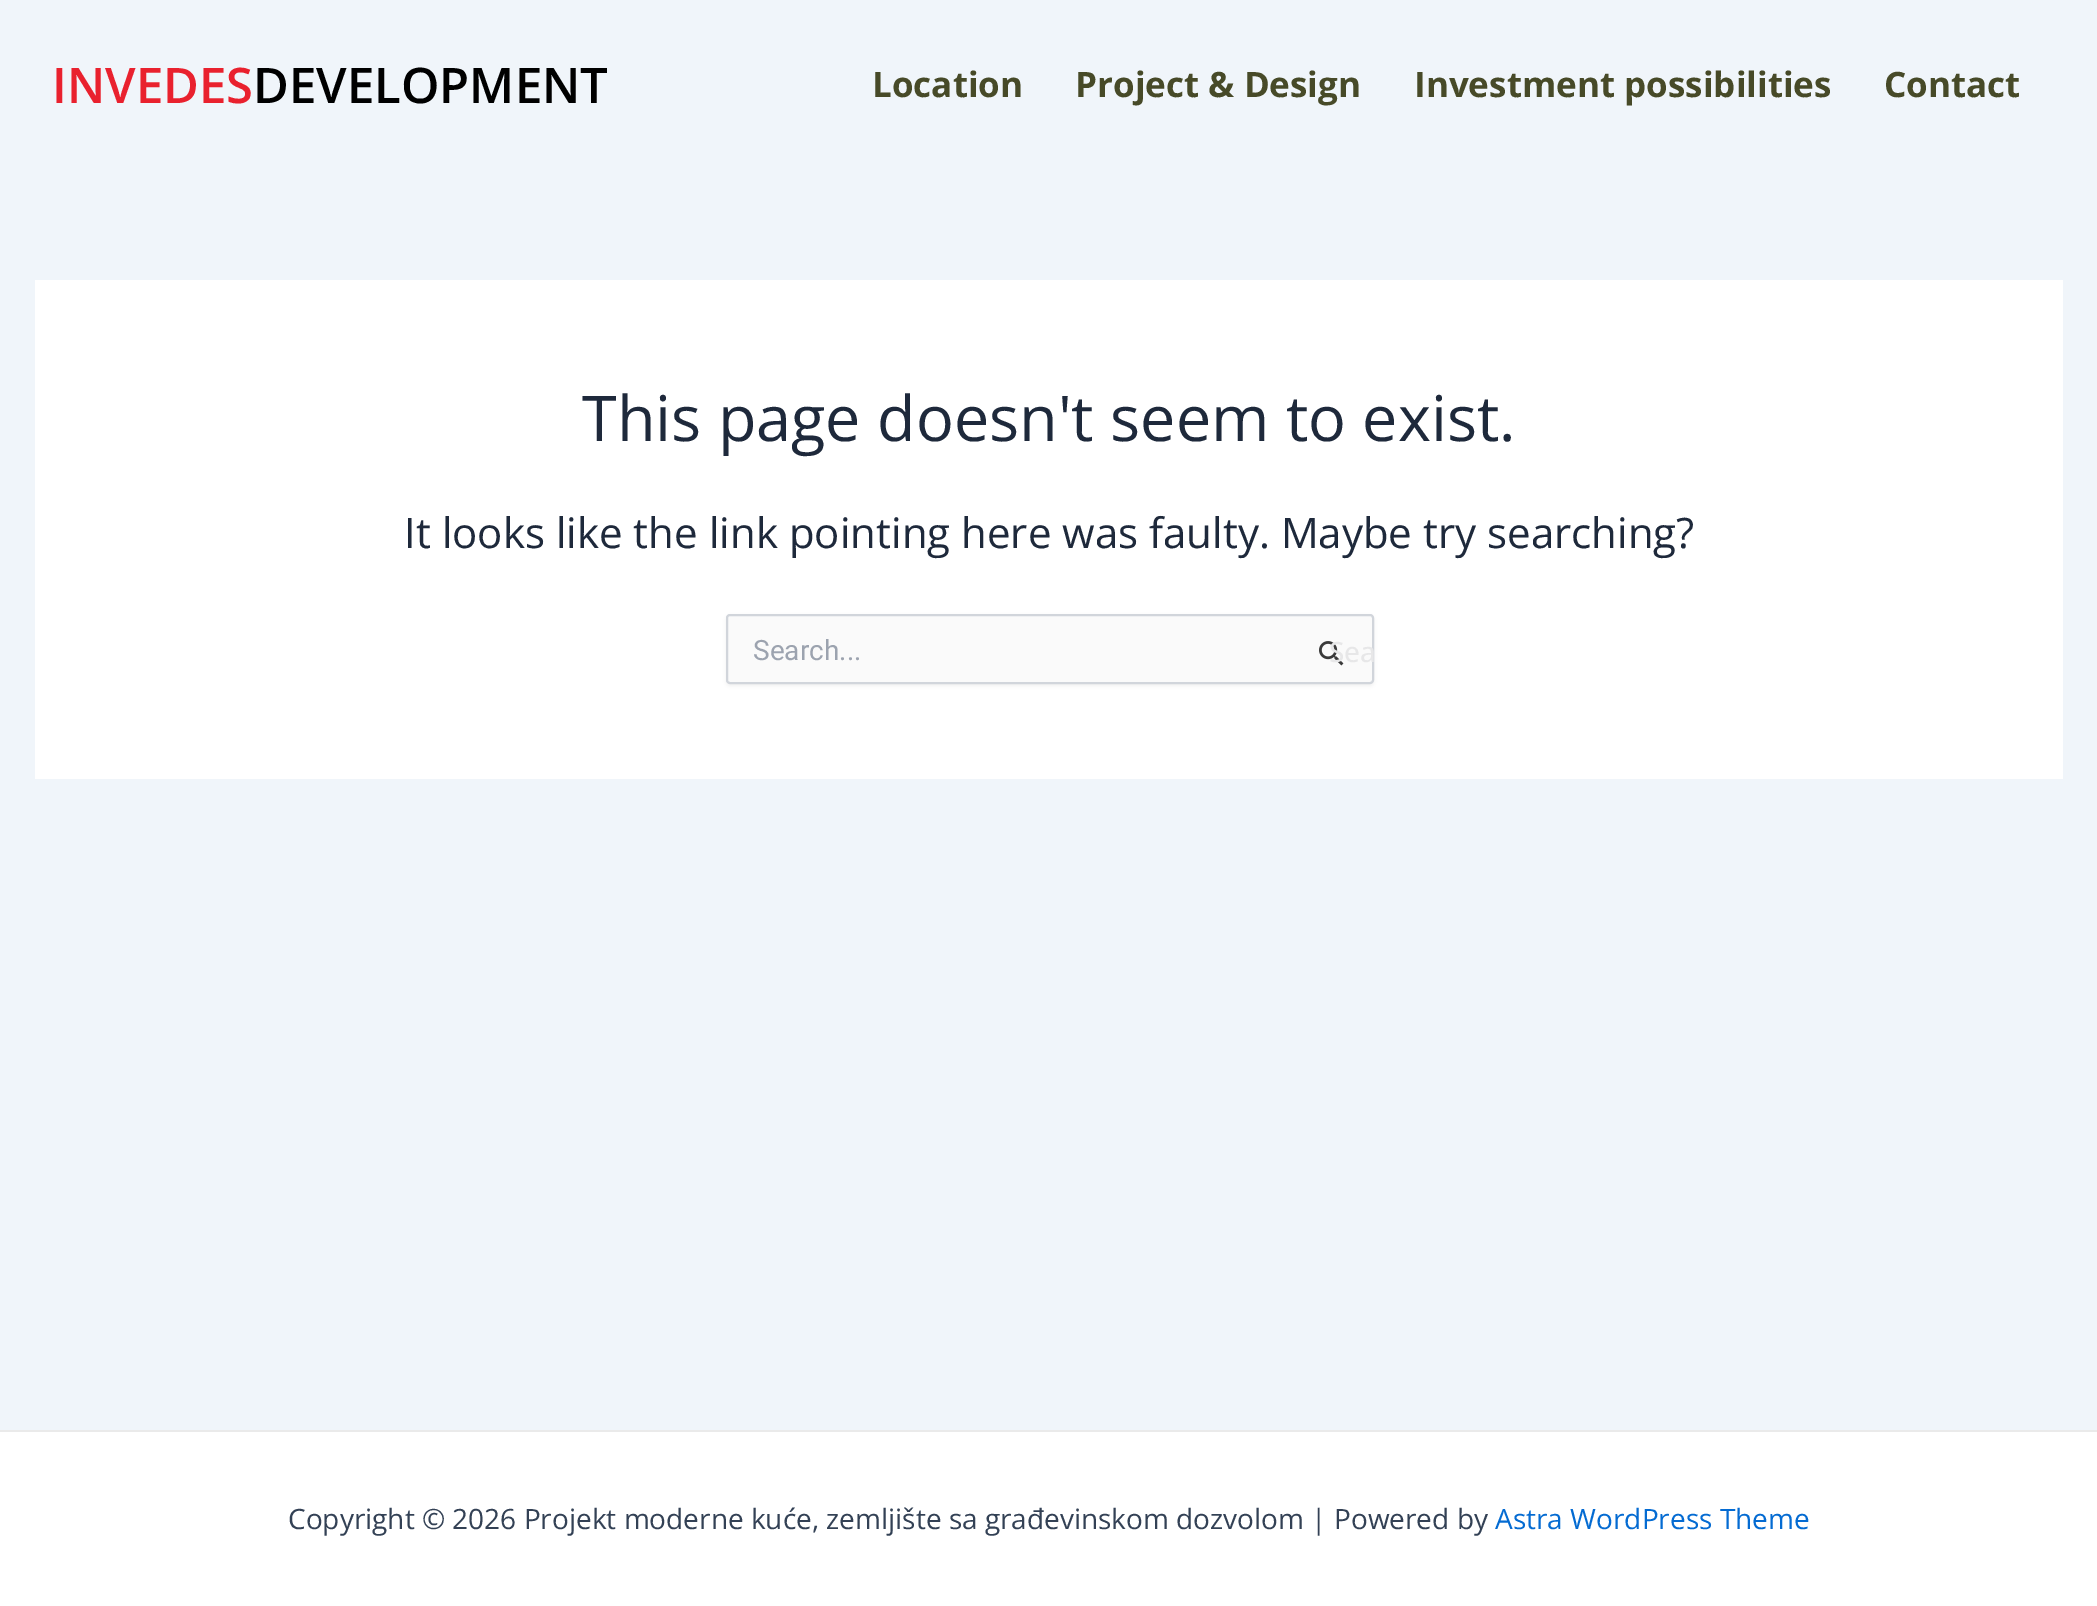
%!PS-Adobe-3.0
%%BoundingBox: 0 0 2097 1606
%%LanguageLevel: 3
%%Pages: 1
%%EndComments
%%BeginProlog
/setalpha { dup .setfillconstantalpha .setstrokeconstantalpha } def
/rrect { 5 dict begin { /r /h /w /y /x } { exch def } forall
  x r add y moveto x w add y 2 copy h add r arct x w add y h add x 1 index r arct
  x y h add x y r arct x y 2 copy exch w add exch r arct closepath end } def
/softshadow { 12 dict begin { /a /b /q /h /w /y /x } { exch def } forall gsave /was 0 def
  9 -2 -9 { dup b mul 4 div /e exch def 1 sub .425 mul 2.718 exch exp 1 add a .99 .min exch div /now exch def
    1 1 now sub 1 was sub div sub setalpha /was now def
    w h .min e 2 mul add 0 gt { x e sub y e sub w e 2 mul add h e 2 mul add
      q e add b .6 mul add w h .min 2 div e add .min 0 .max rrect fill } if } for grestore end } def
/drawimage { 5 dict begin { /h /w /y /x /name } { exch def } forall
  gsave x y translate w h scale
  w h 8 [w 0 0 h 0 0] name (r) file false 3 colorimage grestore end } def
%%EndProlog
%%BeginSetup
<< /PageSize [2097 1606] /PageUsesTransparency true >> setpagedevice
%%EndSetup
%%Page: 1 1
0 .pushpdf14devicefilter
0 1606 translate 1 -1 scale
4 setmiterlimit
0.941 0.961 0.98 setrgbcolor
0 0 2097 1606 rectfill
1 setgray
35 280 2028 499 rectfill
0 setgray
726 616 648 70 4 2 0.05 softshadow
0.98 setgray
727 615 646 68 3 rrect gsave fill grestore
0.82 0.835 0.859 setrgbcolor
2 setlinewidth
stroke
(images/1.raw) 1319 641 25 25 drawimage
1 setgray
0 1432 2097 174 rectfill
0.918 setgray
0 1430 2097 2 rectfill
/OpenSans-SemiBold [49 0 0 -49 0 0] selectfont
0.914 0.129 0.18 setrgbcolor
52 103 moveto (INVEDES) show
0 setgray
253 103 moveto (DEVELOPMENT) show
/OpenSans-Bold [35 0 0 -35 0 0] selectfont
0.278 0.29 0.157 setrgbcolor
872 97 moveto (Location) show
1075 97 moveto (Project & Design) show
1414 97 moveto (Investment possibilities) show
1884 97 moveto (Contact) show
/OpenSans-Regular [63 0 0 -63 0 0] selectfont
0.118 0.161 0.231 setrgbcolor
582 441 moveto (This page doesn't seem to exist.) show
/OpenSans-Regular [42 0 0 -42 0 0] selectfont
404 548 moveto (It looks like the link pointing here was faulty. Maybe try searching?) show
/Roboto-Regular [28 0 0 -28 0 0] selectfont
0.612 0.639 0.686 setrgbcolor
753 660 moveto (Search...) show
gsave
1295 614 79 74 4 rrect clip newpath
/OpenSans-Medium [28 0 0 -28 0 0] selectfont
0.906 0.906 0.91 setrgbcolor
1329 662 moveto (Sea) show
grestore
/OpenSans-Regular [28 0 0 -28 0 0] selectfont
0.2 0.255 0.333 setrgbcolor
288 1529 moveto (Copyright © 2026 Projekt moderne kuće, zemljište sa građevinskom dozvolom | Powered by) show
0.016 0.42 0.824 setrgbcolor
1495 1529 moveto (Astra WordPress Theme) show
.poppdf14devicefilter showpage
%%EOF
